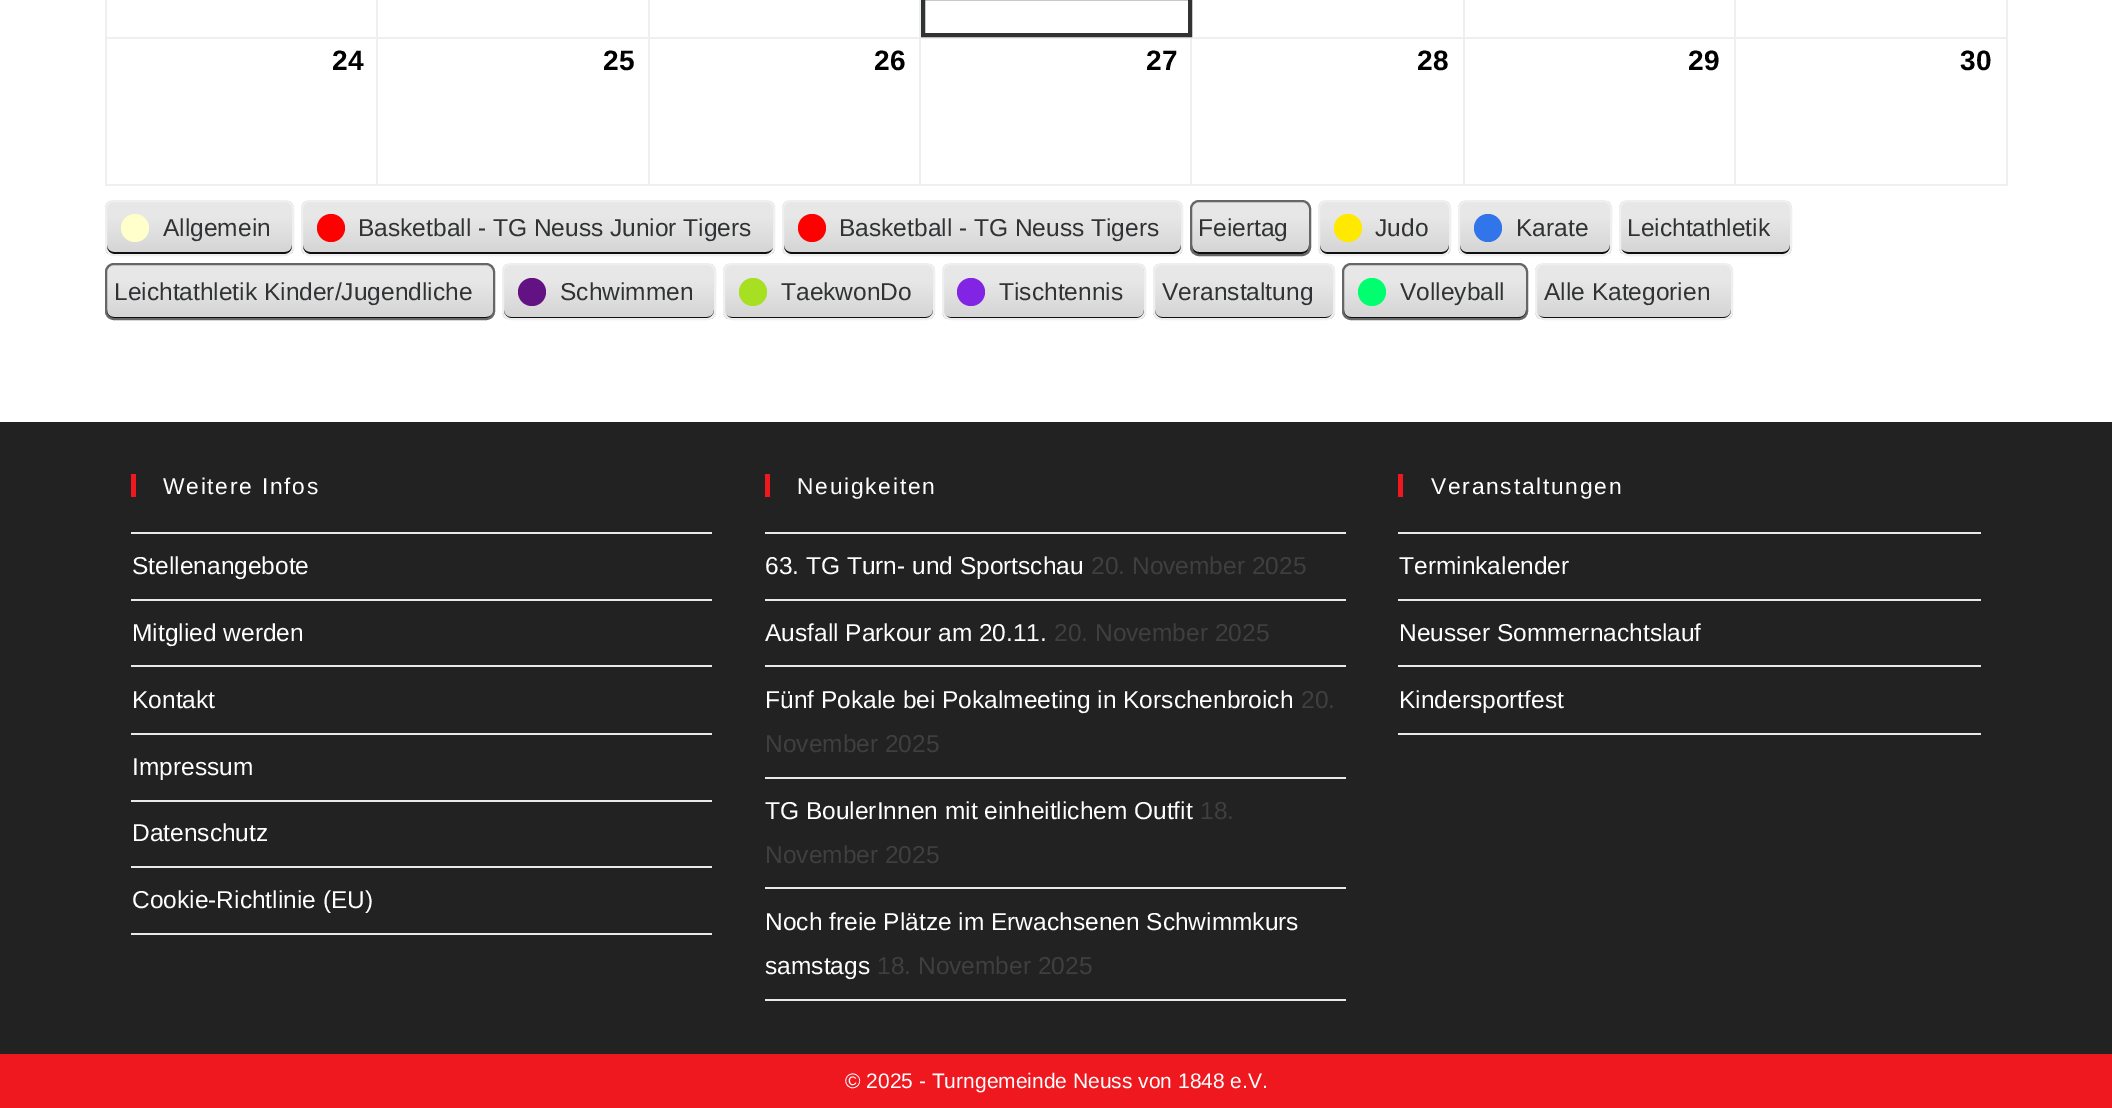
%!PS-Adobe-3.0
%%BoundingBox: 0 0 2112 1108
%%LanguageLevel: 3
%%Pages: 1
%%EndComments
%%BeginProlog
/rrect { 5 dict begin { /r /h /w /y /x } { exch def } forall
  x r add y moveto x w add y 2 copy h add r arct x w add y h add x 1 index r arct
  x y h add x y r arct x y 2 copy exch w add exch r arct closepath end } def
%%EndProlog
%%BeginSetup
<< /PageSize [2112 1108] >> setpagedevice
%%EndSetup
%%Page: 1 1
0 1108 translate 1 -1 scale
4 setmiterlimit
1 setgray
0 0 2112 1108 rectfill
0.937 setgray
1734 37 273 2 rectfill
2006 0 2 186 rectfill
1734 184 273 2 rectfill
1734 37 2 149 rectfill
1463 37 273 2 rectfill
1463 184 273 2 rectfill
1463 37 2 149 rectfill
1190 37 275 2 rectfill
1190 184 275 2 rectfill
1190 37 2 149 rectfill
919 37 273 2 rectfill
919 184 273 2 rectfill
919 37 2 149 rectfill
648 37 273 2 rectfill
648 184 273 2 rectfill
648 37 2 149 rectfill
376 37 273 2 rectfill
376 184 273 2 rectfill
376 37 2 149 rectfill
105 37 273 2 rectfill
376 0 2 39 rectfill
648 0 2 39 rectfill
919 0 2 39 rectfill
0.192 0.196 0.2 setrgbcolor
4 setlinewidth
923 -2 267 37 rectstroke
0.937 setgray
1463 0 2 39 rectfill
1734 0 2 39 rectfill
105 184 273 2 rectfill
105 0 2 186 rectfill
gsave
105 200 189 56 9 rrect clip newpath
gsave newpath 105 201 moveto 294 201 lineto 294 254 lineto 105 254 lineto closepath clip newpath
<< /ShadingType 2 /ColorSpace /DeviceRGB /Coords [200 254 200 201] /Extend [true true] /Function << /FunctionType 3 /Domain [0 1] /Functions [<< /FunctionType 2 /Domain [0 1] /C0 [0.831 0.831 0.831] /C1 [0.906 0.906 0.906] /N 1 >> << /FunctionType 2 /Domain [0 1] /C0 [0.906 0.906 0.906] /C1 [0.906 0.906 0.906] /N 1 >>] /Bounds [0.7] /Encode [0 1 0 1] >> >> shfill grestore
grestore
0.059 setgray
newpath 107 245 moveto 107 247 lineto 107 251 110 254 114 254 curveto 285 254 lineto 289 254 292 251 292 247 curveto 292 245 lineto 292 249 289 252 285 252 curveto 114 252 lineto 110 252 107 249 107 245 curveto closepath fill
0.937 setgray
2 setlinewidth
106 201 187 54 8 rrect stroke
1 1 0.8 setrgbcolor
newpath 135 228 14 0 360 arc closepath fill
gsave
301 200 474 56 9 rrect clip newpath
gsave newpath 301 201 moveto 775 201 lineto 775 254 lineto 301 254 lineto closepath clip newpath
<< /ShadingType 2 /ColorSpace /DeviceRGB /Coords [538 254 538 201] /Extend [true true] /Function << /FunctionType 3 /Domain [0 1] /Functions [<< /FunctionType 2 /Domain [0 1] /C0 [0.831 0.831 0.831] /C1 [0.906 0.906 0.906] /N 1 >> << /FunctionType 2 /Domain [0 1] /C0 [0.906 0.906 0.906] /C1 [0.906 0.906 0.906] /N 1 >>] /Bounds [0.7] /Encode [0 1 0 1] >> >> shfill grestore
grestore
0.059 setgray
newpath 303 245 moveto 303 247 lineto 303 251 306 254 310 254 curveto 767 254 lineto 771 254 774 251 774 247 curveto 774 245 lineto 774 249 770 252 766 252 curveto 310 252 lineto 306 252 303 249 303 245 curveto closepath fill
0.937 setgray
302 201 472 54 8 rrect stroke
1 0 0 setrgbcolor
newpath 331 228 14 0 360 arc closepath fill
gsave
782 200 401 56 9 rrect clip newpath
gsave newpath 782 201 moveto 1183 201 lineto 1183 254 lineto 782 254 lineto closepath clip newpath
<< /ShadingType 2 /ColorSpace /DeviceRGB /Coords [983 254 983 201] /Extend [true true] /Function << /FunctionType 3 /Domain [0 1] /Functions [<< /FunctionType 2 /Domain [0 1] /C0 [0.831 0.831 0.831] /C1 [0.906 0.906 0.906] /N 1 >> << /FunctionType 2 /Domain [0 1] /C0 [0.906 0.906 0.906] /C1 [0.906 0.906 0.906] /N 1 >>] /Bounds [0.7] /Encode [0 1 0 1] >> >> shfill grestore
grestore
0.059 setgray
newpath 784 245 moveto 784 247 lineto 784 251 787 254 791 254 curveto 1174 254 lineto 1178 254 1181 251 1181 247 curveto 1181 245 lineto 1181 249 1178 252 1174 252 curveto 791 252 lineto 787 252 784 249 784 245 curveto closepath fill
0.937 setgray
783 201 399 54 8 rrect stroke
1 0 0 setrgbcolor
newpath 812 228 14 0 360 arc closepath fill
gsave
1190 200 121 56 9 rrect clip newpath
gsave newpath 1190 201 moveto 1311 201 lineto 1311 254 lineto 1190 254 lineto closepath clip newpath
<< /ShadingType 2 /ColorSpace /DeviceRGB /Coords [1250 254 1250 201] /Extend [true true] /Function << /FunctionType 3 /Domain [0 1] /Functions [<< /FunctionType 2 /Domain [0 1] /C0 [0.831 0.831 0.831] /C1 [0.906 0.906 0.906] /N 1 >> << /FunctionType 2 /Domain [0 1] /C0 [0.906 0.906 0.906] /C1 [0.906 0.906 0.906] /N 1 >>] /Bounds [0.7] /Encode [0 1 0 1] >> >> shfill grestore
grestore
0.059 setgray
newpath 1192 245 moveto 1192 258 1206 254 1216 254 curveto 1285 254 lineto 1295 254 1309 258 1309 245 curveto 1309 249 1306 252 1302 252 curveto 1199 252 lineto 1195 252 1192 249 1192 245 curveto closepath fill
0.4 setgray
1191 201 119 54 8 rrect stroke
gsave
1318 200 133 56 9 rrect clip newpath
gsave newpath 1318 201 moveto 1451 201 lineto 1451 254 lineto 1318 254 lineto closepath clip newpath
<< /ShadingType 2 /ColorSpace /DeviceRGB /Coords [1384 254 1384 201] /Extend [true true] /Function << /FunctionType 3 /Domain [0 1] /Functions [<< /FunctionType 2 /Domain [0 1] /C0 [0.831 0.831 0.831] /C1 [0.906 0.906 0.906] /N 1 >> << /FunctionType 2 /Domain [0 1] /C0 [0.906 0.906 0.906] /C1 [0.906 0.906 0.906] /N 1 >>] /Bounds [0.7] /Encode [0 1 0 1] >> >> shfill grestore
grestore
0.059 setgray
newpath 1320 245 moveto 1320 247 lineto 1320 251 1323 254 1327 254 curveto 1442 254 lineto 1446 254 1449 251 1449 247 curveto 1449 245 lineto 1449 249 1446 252 1442 252 curveto 1326 252 lineto 1323 252 1320 249 1320 245 curveto closepath fill
0.937 setgray
1319 201 131 54 8 rrect stroke
1 0.914 0 setrgbcolor
newpath 1348 228 14 0 360 arc closepath fill
gsave
1458 200 154 56 9 rrect clip newpath
gsave newpath 1458 201 moveto 1612 201 lineto 1612 254 lineto 1458 254 lineto closepath clip newpath
<< /ShadingType 2 /ColorSpace /DeviceRGB /Coords [1535 254 1535 201] /Extend [true true] /Function << /FunctionType 3 /Domain [0 1] /Functions [<< /FunctionType 2 /Domain [0 1] /C0 [0.831 0.831 0.831] /C1 [0.906 0.906 0.906] /N 1 >> << /FunctionType 2 /Domain [0 1] /C0 [0.906 0.906 0.906] /C1 [0.906 0.906 0.906] /N 1 >>] /Bounds [0.7] /Encode [0 1 0 1] >> >> shfill grestore
grestore
0.059 setgray
newpath 1460 245 moveto 1460 247 lineto 1460 251 1463 254 1467 254 curveto 1603 254 lineto 1607 254 1610 251 1610 247 curveto 1610 245 lineto 1610 249 1607 252 1603 252 curveto 1466 252 lineto 1463 252 1460 249 1460 245 curveto closepath fill
0.937 setgray
1459 201 152 54 8 rrect stroke
0.192 0.459 0.918 setrgbcolor
newpath 1488 228 14 0 360 arc closepath fill
gsave
1619 200 173 56 9 rrect clip newpath
gsave newpath 1619 201 moveto 1792 201 lineto 1792 254 lineto 1619 254 lineto closepath clip newpath
<< /ShadingType 2 /ColorSpace /DeviceRGB /Coords [1705 254 1705 201] /Extend [true true] /Function << /FunctionType 3 /Domain [0 1] /Functions [<< /FunctionType 2 /Domain [0 1] /C0 [0.831 0.831 0.831] /C1 [0.906 0.906 0.906] /N 1 >> << /FunctionType 2 /Domain [0 1] /C0 [0.906 0.906 0.906] /C1 [0.906 0.906 0.906] /N 1 >>] /Bounds [0.7] /Encode [0 1 0 1] >> >> shfill grestore
grestore
0.059 setgray
newpath 1621 249 moveto 1622 252 1625 254 1628 254 curveto 1783 254 lineto 1787 254 1790 251 1790 247 curveto 1790 245 lineto 1790 249 1787 252 1783 252 curveto 1628 252 lineto 1625 252 1623 251 1621 249 curveto closepath fill
0.937 setgray
1620 201 171 54 8 rrect stroke
gsave
105 263 390 57 9 rrect clip newpath
gsave newpath 105 264 moveto 495 264 lineto 495 319 lineto 105 319 lineto closepath clip newpath
<< /ShadingType 2 /ColorSpace /DeviceRGB /Coords [300 319 300 264] /Extend [true true] /Function << /FunctionType 3 /Domain [0 1] /Functions [<< /FunctionType 2 /Domain [0 1] /C0 [0.831 0.831 0.831] /C1 [0.906 0.906 0.906] /N 1 >> << /FunctionType 2 /Domain [0 1] /C0 [0.906 0.906 0.906] /C1 [0.906 0.906 0.906] /N 1 >>] /Bounds [0.7] /Encode [0 1 0 1] >> >> shfill grestore
grestore
0.059 setgray
newpath 107 310 moveto 107 312 lineto 107 316 110 319 114 319 curveto 487 319 lineto 491 319 494 316 494 312 curveto 494 310 lineto 494 314 490 317 486 317 curveto 114 317 lineto 110 317 107 314 107 310 curveto closepath fill
0.4 setgray
106 264 388 55 8 rrect stroke
gsave
502 263 214 57 9 rrect clip newpath
gsave newpath 502 264 moveto 716 264 lineto 716 319 lineto 502 319 lineto closepath clip newpath
<< /ShadingType 2 /ColorSpace /DeviceRGB /Coords [609 319 609 264] /Extend [true true] /Function << /FunctionType 3 /Domain [0 1] /Functions [<< /FunctionType 2 /Domain [0 1] /C0 [0.831 0.831 0.831] /C1 [0.906 0.906 0.906] /N 1 >> << /FunctionType 2 /Domain [0 1] /C0 [0.906 0.906 0.906] /C1 [0.906 0.906 0.906] /N 1 >>] /Bounds [0.7] /Encode [0 1 0 1] >> >> shfill grestore
grestore
0.059 setgray
newpath 504 310 moveto 504 312 lineto 504 316 507 319 511 319 curveto 707 319 lineto 711 319 714 316 714 312 curveto 714 310 lineto 714 314 711 317 707 317 curveto 511 317 lineto 507 317 504 314 504 310 curveto closepath fill
0.937 setgray
503 264 212 55 8 rrect stroke
0.384 0.071 0.51 setrgbcolor
newpath 532 292 14 0 360 arc closepath fill
gsave
723 263 212 57 9 rrect clip newpath
gsave newpath 723 264 moveto 935 264 lineto 935 319 lineto 723 319 lineto closepath clip newpath
<< /ShadingType 2 /ColorSpace /DeviceRGB /Coords [829 319 829 264] /Extend [true true] /Function << /FunctionType 3 /Domain [0 1] /Functions [<< /FunctionType 2 /Domain [0 1] /C0 [0.831 0.831 0.831] /C1 [0.906 0.906 0.906] /N 1 >> << /FunctionType 2 /Domain [0 1] /C0 [0.906 0.906 0.906] /C1 [0.906 0.906 0.906] /N 1 >>] /Bounds [0.7] /Encode [0 1 0 1] >> >> shfill grestore
grestore
0.059 setgray
newpath 725 314 moveto 726 317 729 319 732 319 curveto 926 319 lineto 930 319 933 316 933 312 curveto 933 310 lineto 933 314 930 317 926 317 curveto 732 317 lineto 729 317 727 316 725 314 curveto closepath fill
0.937 setgray
724 264 210 55 8 rrect stroke
0.655 0.878 0.137 setrgbcolor
newpath 753 292 14 0 360 arc closepath fill
gsave
942 263 204 57 9 rrect clip newpath
gsave newpath 942 264 moveto 1146 264 lineto 1146 319 lineto 942 319 lineto closepath clip newpath
<< /ShadingType 2 /ColorSpace /DeviceRGB /Coords [1044 319 1044 264] /Extend [true true] /Function << /FunctionType 3 /Domain [0 1] /Functions [<< /FunctionType 2 /Domain [0 1] /C0 [0.831 0.831 0.831] /C1 [0.906 0.906 0.906] /N 1 >> << /FunctionType 2 /Domain [0 1] /C0 [0.906 0.906 0.906] /C1 [0.906 0.906 0.906] /N 1 >>] /Bounds [0.7] /Encode [0 1 0 1] >> >> shfill grestore
grestore
0.059 setgray
newpath 943 310 moveto 943 312 lineto 943 316 946 319 950 319 curveto 1138 319 lineto 1142 319 1145 316 1145 312 curveto 1145 271 lineto 1145 269 1144 268 1143 266 curveto 1144 270 lineto 1144 310 lineto 1144 314 1141 317 1138 317 curveto 950 317 lineto 946 317 943 314 943 310 curveto closepath fill
0.937 setgray
943 264 202 55 8 rrect stroke
0.51 0.141 0.89 setrgbcolor
newpath 971 292 14 0 360 arc closepath fill
gsave
1153 263 182 57 9 rrect clip newpath
gsave newpath 1153 264 moveto 1335 264 lineto 1335 319 lineto 1153 319 lineto closepath clip newpath
<< /ShadingType 2 /ColorSpace /DeviceRGB /Coords [1244 319 1244 264] /Extend [true true] /Function << /FunctionType 3 /Domain [0 1] /Functions [<< /FunctionType 2 /Domain [0 1] /C0 [0.831 0.831 0.831] /C1 [0.906 0.906 0.906] /N 1 >> << /FunctionType 2 /Domain [0 1] /C0 [0.906 0.906 0.906] /C1 [0.906 0.906 0.906] /N 1 >>] /Bounds [0.7] /Encode [0 1 0 1] >> >> shfill grestore
grestore
0.059 setgray
newpath 1155 310 moveto 1155 312 lineto 1155 316 1158 319 1162 319 curveto 1327 319 lineto 1331 319 1334 316 1334 312 curveto 1334 310 lineto 1334 314 1330 317 1326 317 curveto 1162 317 lineto 1158 317 1155 314 1155 310 curveto closepath fill
0.937 setgray
1154 264 180 55 8 rrect stroke
gsave
1342 263 186 57 9 rrect clip newpath
gsave newpath 1342 264 moveto 1528 264 lineto 1528 319 lineto 1342 319 lineto closepath clip newpath
<< /ShadingType 2 /ColorSpace /DeviceRGB /Coords [1435 319 1435 264] /Extend [true true] /Function << /FunctionType 3 /Domain [0 1] /Functions [<< /FunctionType 2 /Domain [0 1] /C0 [0.831 0.831 0.831] /C1 [0.906 0.906 0.906] /N 1 >> << /FunctionType 2 /Domain [0 1] /C0 [0.906 0.906 0.906] /C1 [0.906 0.906 0.906] /N 1 >>] /Bounds [0.7] /Encode [0 1 0 1] >> >> shfill grestore
grestore
0.059 setgray
newpath 1344 310 moveto 1344 312 lineto 1344 316 1347 319 1351 319 curveto 1519 319 lineto 1523 319 1526 316 1526 312 curveto 1526 310 lineto 1526 314 1523 317 1519 317 curveto 1351 317 lineto 1347 317 1344 314 1344 310 curveto closepath fill
0.4 setgray
1343 264 184 55 8 rrect stroke
0 1 0.431 setrgbcolor
newpath 1372 292 14 0 360 arc closepath fill
gsave
1535 263 198 57 9 rrect clip newpath
gsave newpath 1535 264 moveto 1733 264 lineto 1733 319 lineto 1535 319 lineto closepath clip newpath
<< /ShadingType 2 /ColorSpace /DeviceRGB /Coords [1634 319 1634 264] /Extend [true true] /Function << /FunctionType 3 /Domain [0 1] /Functions [<< /FunctionType 2 /Domain [0 1] /C0 [0.831 0.831 0.831] /C1 [0.906 0.906 0.906] /N 1 >> << /FunctionType 2 /Domain [0 1] /C0 [0.906 0.906 0.906] /C1 [0.906 0.906 0.906] /N 1 >>] /Bounds [0.7] /Encode [0 1 0 1] >> >> shfill grestore
grestore
0.059 setgray
newpath 1537 314 moveto 1538 317 1541 319 1544 319 curveto 1724 319 lineto 1728 319 1731 316 1731 312 curveto 1731 310 lineto 1731 314 1728 317 1724 317 curveto 1544 317 lineto 1541 317 1539 316 1537 314 curveto closepath fill
0.937 setgray
1536 264 196 55 8 rrect stroke
0.133 setgray
0 422 2112 632 rectfill
0.937 0.094 0.122 setrgbcolor
131 474 5 23 rectfill
0.914 setgray
131 532 581 2 rectfill
131 599 581 2 rectfill
131 665 581 2 rectfill
131 733 581 2 rectfill
131 800 581 2 rectfill
131 866 581 2 rectfill
131 933 581 2 rectfill
0.937 0.094 0.122 setrgbcolor
765 474 5 23 rectfill
0.914 setgray
765 532 581 2 rectfill
765 599 581 2 rectfill
765 665 581 2 rectfill
765 777 581 2 rectfill
765 887 581 2 rectfill
765 999 581 2 rectfill
0.937 0.094 0.122 setrgbcolor
1398 474 5 23 rectfill
0.914 setgray
1398 532 583 2 rectfill
1398 599 583 2 rectfill
1398 665 583 2 rectfill
1398 733 583 2 rectfill
0.937 0.094 0.122 setrgbcolor
0 1054 2112 54 rectfill
/LiberationSans-Bold [28 0 0 -28 0 0] selectfont
0 setgray
332 70 moveto (24) show
603 70 moveto (25) show
874 70 moveto (26) show
1146 70 moveto (27) show
1417 70 moveto (28) show
1688 70 moveto (29) show
1960 70 moveto (30) show
/LiberationSans-Regular [24.5 0 0 -24.5 0 0] selectfont
0.192 0.196 0.2 setrgbcolor
163 236 moveto (Allgemein) show
358 236 moveto (Basketball - TG Neuss Junior Tigers) show
839 236 moveto (Basketball - TG Neuss Tigers) show
1198 236 moveto (Feiertag) show
1375 236 moveto (Judo) show
1516 236 moveto (Karate) show
1627 236 moveto (Leichtathletik) show
114 300 moveto (Leichtathletik Kinder/Jugendliche) show
560 300 moveto (Schwimmen) show
781 300 moveto (TaekwonDo) show
999 300 moveto (Tischtennis) show
1162 300 moveto (Veranstaltung) show
1400 300 moveto (Volleyball) show
1544 300 moveto (Alle Kategorien) show
/LiberationSans-Regular [22.75 0 0 -22.75 0 0] selectfont
1 setgray
163 494 moveto 1.75 0 (Weitere Infos) ashow
/LiberationSans-Regular [24.5 0 0 -24.5 0 0] selectfont
132 574 moveto (Stellenangebote) show
132 641 moveto (Mitglied werden) show
132 708 moveto (Kontakt) show
132 775 moveto (Impressum) show
132 841 moveto (Datenschutz) show
132 908 moveto (Cookie-Richtlinie \(EU\)) show
/LiberationSans-Regular [22.75 0 0 -22.75 0 0] selectfont
797 494 moveto 1.75 0 (Neuigkeiten) ashow
/LiberationSans-Regular [24.5 0 0 -24.5 0 0] selectfont
765 574 moveto (63. TG Turn- und Sportschau) show
0.247 setgray
1091 574 moveto (20. November 2025) show
1 setgray
765 641 moveto (Ausfall Parkour am 20.11.) show
0.247 setgray
1054 641 moveto (20. November 2025) show
1 setgray
765 708 moveto (Fünf Pokale bei Pokalmeeting in Korschenbroich) show
0.247 setgray
1301 708 moveto (20.) show
765 752 moveto (November 2025) show
1 setgray
765 819 moveto (TG BoulerInnen mit einheitlichem Outfit) show
0.247 setgray
1200 819 moveto (18.) show
765 863 moveto (November 2025) show
1 setgray
765 930 moveto (Noch freie Plätze im Erwachsenen Schwimmkurs) show
765 974 moveto (samstags) show
0.247 setgray
877 974 moveto (18. November 2025) show
/LiberationSans-Regular [22.75 0 0 -22.75 0 0] selectfont
1 setgray
1431 494 moveto 1.75 0 (Veranstaltungen) ashow
/LiberationSans-Regular [24.5 0 0 -24.5 0 0] selectfont
1399 574 moveto (Terminkalender) show
1399 641 moveto (Neusser Sommernachtslauf) show
1399 708 moveto (Kindersportfest) show
/LiberationSans-Regular [21 0 0 -21 0 0] selectfont
845 1088 moveto (© 2025 - Turngemeinde Neuss von 1848 e.V.) show
showpage
%%EOF
